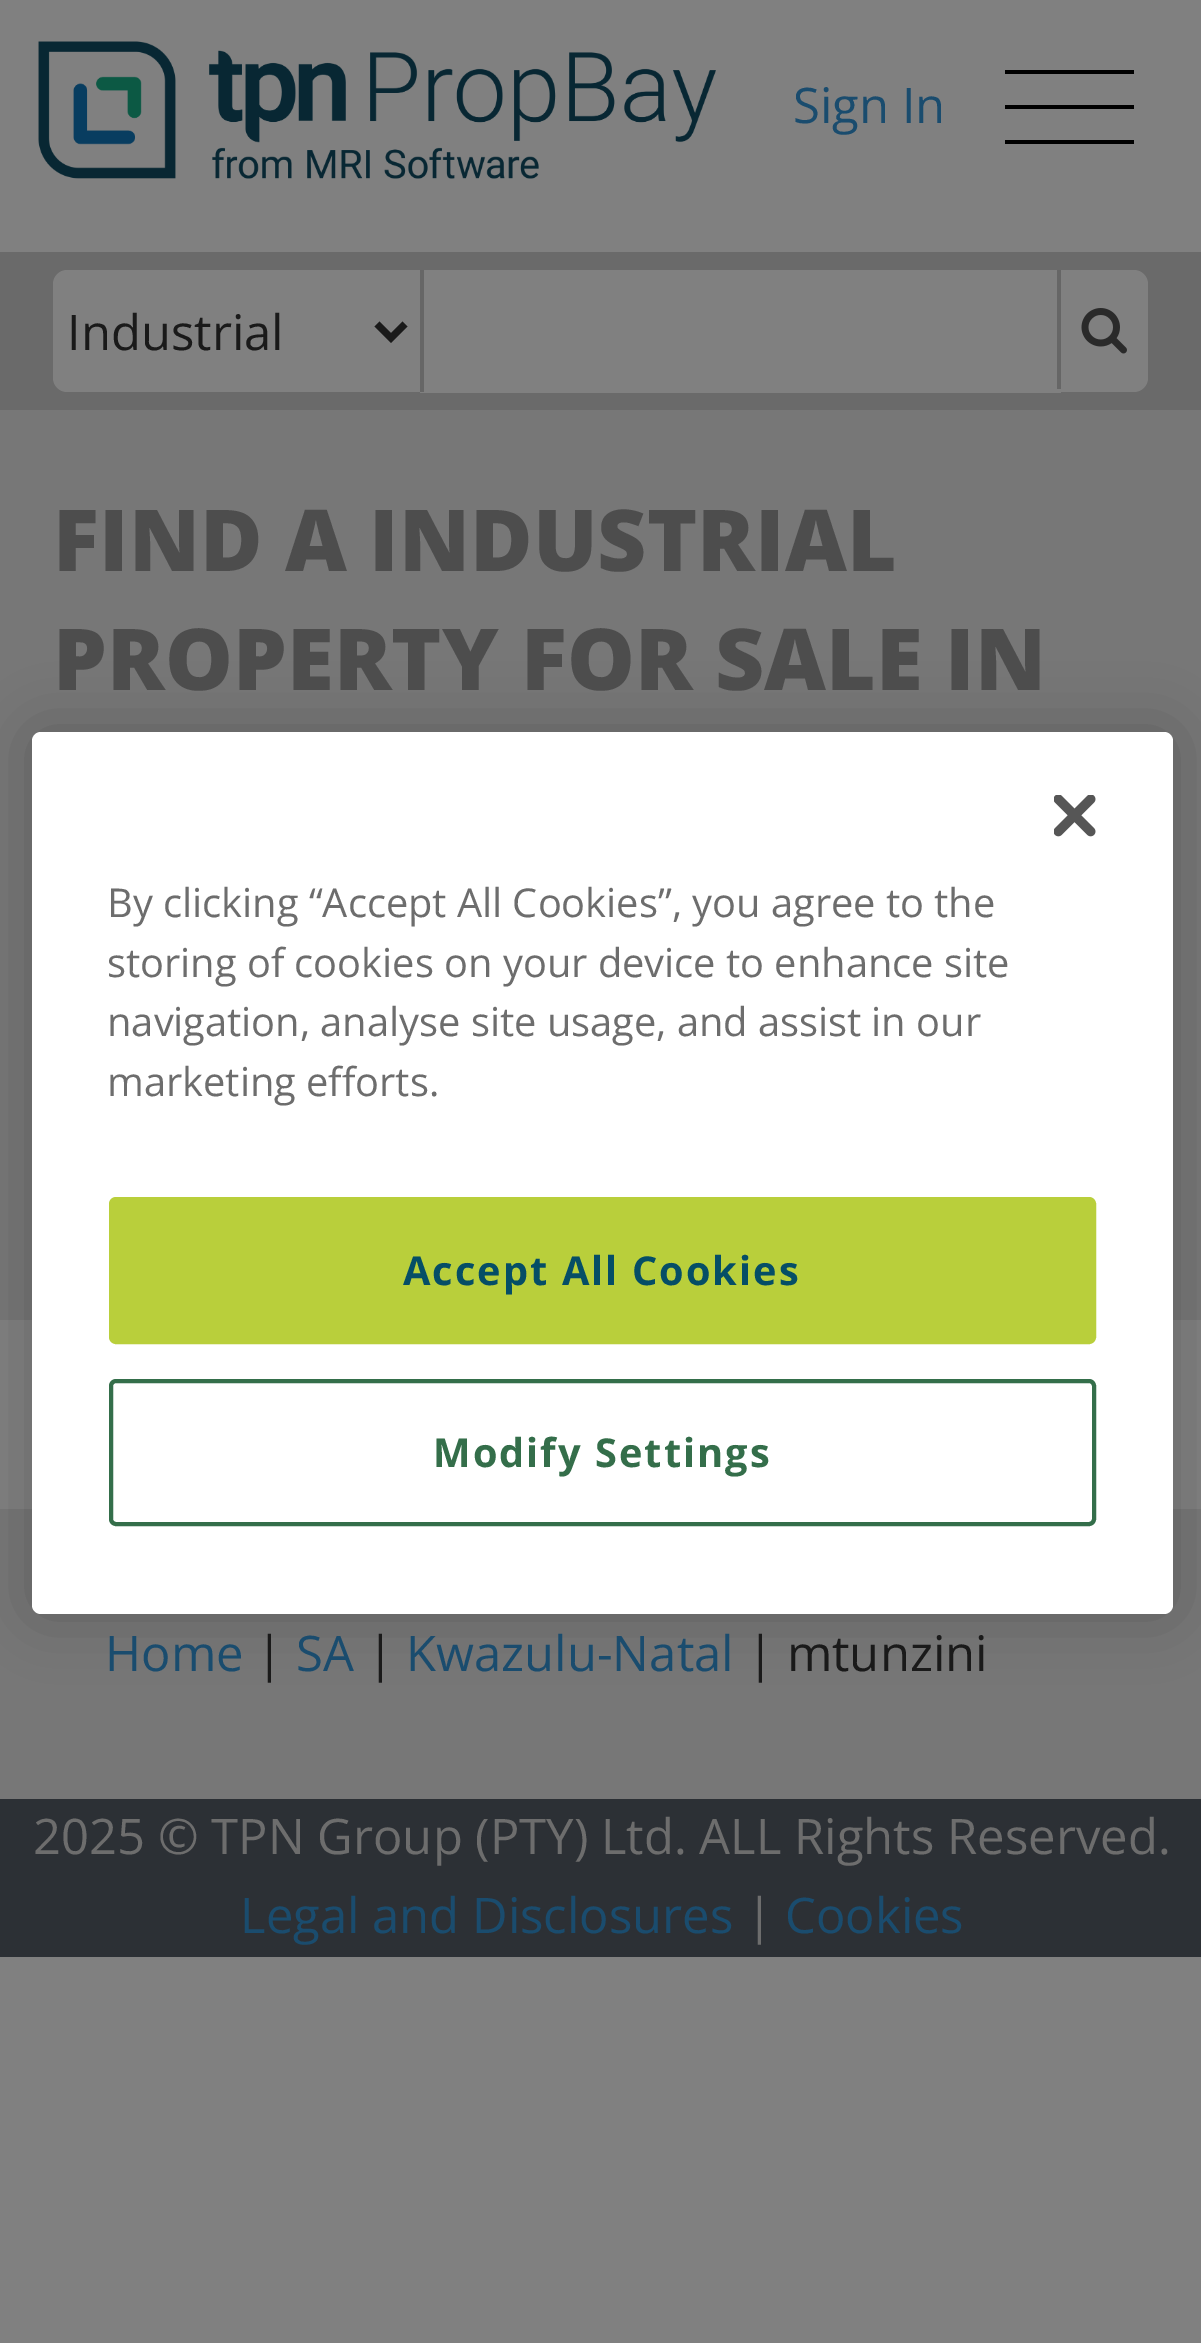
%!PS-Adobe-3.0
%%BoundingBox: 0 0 1201 2343
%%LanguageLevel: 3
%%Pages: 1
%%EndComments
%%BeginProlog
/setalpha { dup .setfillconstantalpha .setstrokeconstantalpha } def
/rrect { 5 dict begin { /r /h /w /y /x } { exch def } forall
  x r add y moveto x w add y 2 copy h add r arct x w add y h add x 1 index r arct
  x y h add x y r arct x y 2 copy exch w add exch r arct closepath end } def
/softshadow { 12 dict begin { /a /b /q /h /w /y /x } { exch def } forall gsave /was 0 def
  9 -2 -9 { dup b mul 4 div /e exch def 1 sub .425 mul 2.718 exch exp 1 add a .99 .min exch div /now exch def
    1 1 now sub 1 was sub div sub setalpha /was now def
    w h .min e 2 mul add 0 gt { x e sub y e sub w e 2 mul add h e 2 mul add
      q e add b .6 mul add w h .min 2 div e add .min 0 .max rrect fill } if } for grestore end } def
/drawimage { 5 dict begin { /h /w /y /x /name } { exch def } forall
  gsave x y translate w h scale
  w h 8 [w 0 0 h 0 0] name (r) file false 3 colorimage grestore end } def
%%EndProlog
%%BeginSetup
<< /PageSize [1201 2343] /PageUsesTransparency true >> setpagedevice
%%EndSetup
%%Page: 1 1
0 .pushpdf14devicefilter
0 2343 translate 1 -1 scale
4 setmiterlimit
0.502 setgray
0 0 1201 2343 rectfill
(images/1.raw) 38 41 678 138 drawimage
0 setgray
1005 70 129 4 rectfill
1005 105 129 4 rectfill
1005 140 129 4 rectfill
0.416 setgray
0 252 1201 158 rectfill
0.502 setgray
newpath 67 270 moveto 420 270 lineto 420 392 lineto 67 392 lineto 59.5 392 53 385.5 53 378 curveto 53 284 lineto 53 276.5 59.5 270 67 270 curveto closepath fill
0.102 setgray
7 setlinewidth
newpath 377 324 moveto 391 338 lineto 405 324 lineto stroke
0.502 setgray
424 270 633 119 rectfill
0.4 setgray
1057 270 4 122 rectfill
0.502 setgray
420 389 641 4 rectfill
0.4 setgray
420 270 4 122 rectfill
0.502 setgray
newpath 1061 270 moveto 1134 270 lineto 1141.5 270 1148 276.5 1148 284 curveto 1148 378 lineto 1148 385.5 1141.5 392 1134 392 curveto 1061 392 lineto closepath fill
(images/2.raw) 1081 308 46 46 drawimage
0.467 setgray
0 410 1201 910 rectfill
0 1509 1201 290 rectfill
0 setgray
32 732 1141 882 9 31.5 0.2 softshadow
1 setgray
32 732 1141 882 9 rrect fill
(images/3.raw) 1054 795 42 42 drawimage
0.725 0.812 0.231 setrgbcolor
111 1199 983 143 5 rrect gsave fill grestore
4 setlinewidth
stroke
0.204 0.431 0.29 setrgbcolor
111 1381 983 143 5 rrect stroke
0.173 0.188 0.208 setrgbcolor
0 1799 1201 158 rectfill
/OpenSans-Regular [49 0 0 -49 0 0] selectfont
0.102 0.298 0.431 setrgbcolor
793 123 moveto (Sign In) show
0.102 setgray
67 350 moveto (Industrial) show
/OpenSans-ExtraBold [85.4 0 0 -85.4 0 0] selectfont
0.302 setgray
53 571 moveto (FIND A INDUSTRIAL) show
53 690 moveto (PROPERTY FOR SALE IN) show
/OpenSans-Regular [49 0 0 -49 0 0] selectfont
0.102 0.298 0.431 setrgbcolor
105 1671 moveto (Home) show
0.102 setgray
256 1671 moveto (|) show
0.102 0.298 0.431 setrgbcolor
296 1671 moveto (SA) show
0.102 setgray
367 1671 moveto (|) show
0.102 0.298 0.431 setrgbcolor
406 1671 moveto (Kwazulu-Natal) show
0.102 setgray
747 1671 moveto (| mtunzini) show
/OpenSans-Regular [39.8 0 0 -39.8 0 0] selectfont
0.427 setgray
107 917 moveto (By clicking “Accept All Cookies”, you agree to the) show
107 977 moveto (storing of cookies on your device to enhance site) show
107 1036 moveto (navigation, analyse site usage, and assist in our) show
107 1096 moveto (marketing efforts.) show
/OpenSans-Bold [39.8 0 0 -39.8 0 0] selectfont
0.02 0.306 0.4 setrgbcolor
403 1285 moveto 2 0 (Accept All Cookies) ashow
0.204 0.431 0.29 setrgbcolor
433 1467 moveto 2 0 (Modify Settings) ashow
/OpenSans-Regular [49 0 0 -49 0 0] selectfont
0.427 setgray
33 1854 moveto (2025 © TPN Group \(PTY\) Ltd. ALL Rights Reserved.) show
0.102 0.298 0.431 setrgbcolor
240 1933 moveto (Legal and Disclosures) show
0.427 setgray
746 1933 moveto (|) show
0.102 0.298 0.431 setrgbcolor
785 1933 moveto (Cookies) show
.poppdf14devicefilter showpage
%%EOF
